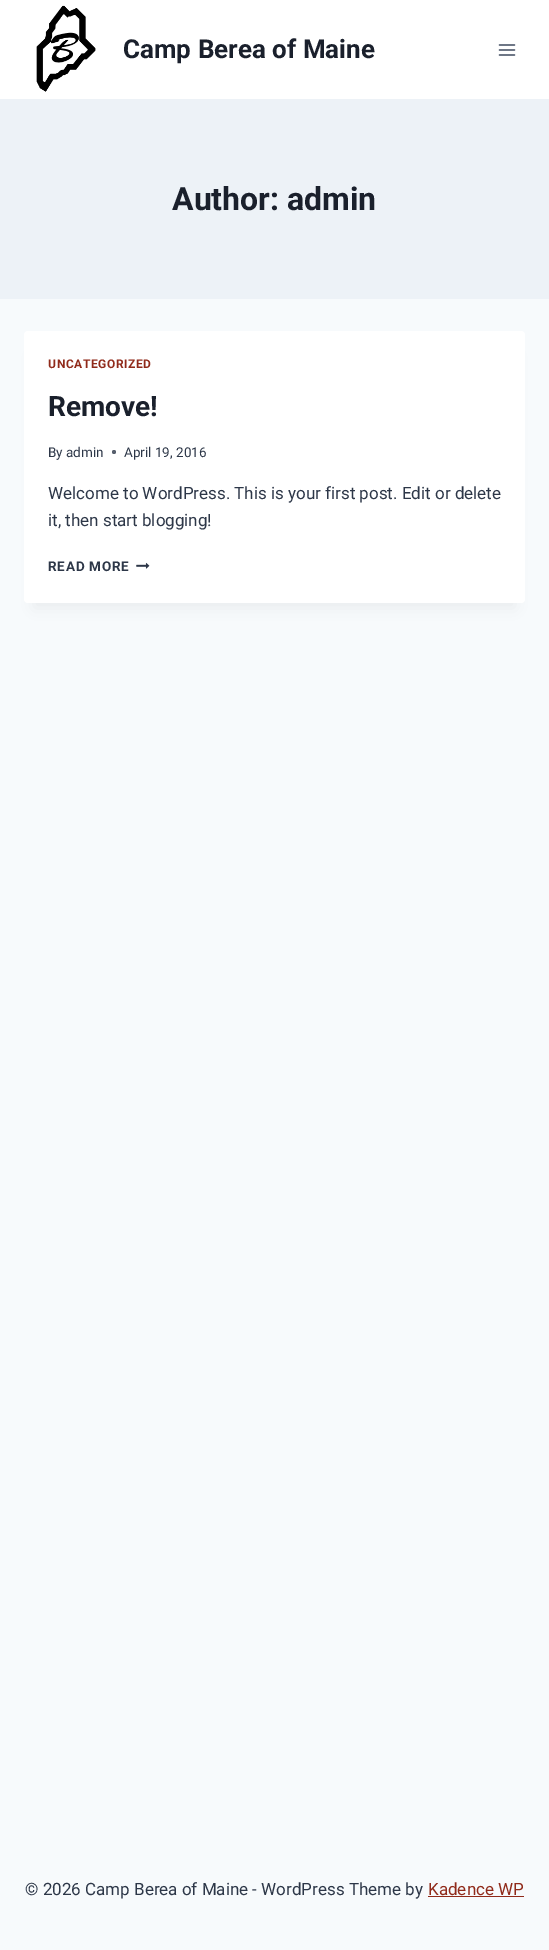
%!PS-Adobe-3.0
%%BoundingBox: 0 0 549 1950
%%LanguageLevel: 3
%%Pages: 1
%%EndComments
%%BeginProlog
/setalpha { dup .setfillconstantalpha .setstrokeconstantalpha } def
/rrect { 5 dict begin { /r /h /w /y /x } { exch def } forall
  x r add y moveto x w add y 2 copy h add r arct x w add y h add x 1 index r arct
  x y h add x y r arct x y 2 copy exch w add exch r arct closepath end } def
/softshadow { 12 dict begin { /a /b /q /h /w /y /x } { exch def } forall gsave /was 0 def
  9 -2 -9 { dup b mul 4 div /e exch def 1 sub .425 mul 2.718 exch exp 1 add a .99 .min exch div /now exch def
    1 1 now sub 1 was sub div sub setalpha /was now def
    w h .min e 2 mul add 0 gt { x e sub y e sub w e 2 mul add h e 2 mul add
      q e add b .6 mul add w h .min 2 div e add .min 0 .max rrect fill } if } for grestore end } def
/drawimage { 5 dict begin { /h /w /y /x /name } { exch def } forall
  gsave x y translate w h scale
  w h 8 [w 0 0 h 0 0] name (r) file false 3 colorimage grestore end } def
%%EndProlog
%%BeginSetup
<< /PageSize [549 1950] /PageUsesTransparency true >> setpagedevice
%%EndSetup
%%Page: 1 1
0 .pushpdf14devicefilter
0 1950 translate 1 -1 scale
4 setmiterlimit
0.969 0.98 0.988 setrgbcolor
0 0 549 1950 rectfill
1 setgray
0 0 549 99 rectfill
(images/1.raw) 36 5 60 87 drawimage
(images/2.raw) 498 44 18 12 drawimage
0.929 0.949 0.969 setrgbcolor
0 99 549 200 rectfill
0 setgray
34 356 481 252 0 7.5 0.05 softshadow
1 setgray
24 331 501 272 4 rrect fill
0.341 0.373 0.427 setrgbcolor
newpath 114 452 2 0 360 arc closepath fill
(images/3.raw) 136 562 14 7 drawimage
0.565 0.165 0.102 setrgbcolor
428 1896 96 1 rectfill
/Roboto-Bold [26 0 0 -26 0 0] selectfont
0.102 0.125 0.173 setrgbcolor
123 58 moveto (Camp Berea of Maine) show
/Roboto-Bold [32 0 0 -32 0 0] selectfont
172 210 moveto (Author: admin) show
/Roboto-Bold [12 0 0 -12 0 0] selectfont
0.565 0.165 0.102 setrgbcolor
48 368 moveto 0.6 0 (UNCATEGORIZED) ashow
/Roboto-Bold [28 0 0 -28 0 0] selectfont
0.102 0.125 0.173 setrgbcolor
48 416 moveto (Remove!) show
/Roboto-Regular [13.5 0 0 -13.5 0 0] selectfont
0.176 0.216 0.282 setrgbcolor
48 457 moveto (By admin) show
124 457 moveto (April 19, 2016) show
/Roboto-Regular [17 0 0 -17 0 0] selectfont
48 499 moveto (Welcome to WordPress. This is your first post. Edit or delete) show
48 526 moveto (it, then start blogging!) show
/Roboto-Bold [13.5 0 0 -13.5 0 0] selectfont
48 571 moveto 0.75 0 (READ MORE) ashow
/Roboto-Regular [17 0 0 -17 0 0] selectfont
25 1895 moveto (© 2026 Camp Berea of Maine - WordPress Theme by) show
0.565 0.165 0.102 setrgbcolor
428 1895 moveto (Kadence WP) show
.poppdf14devicefilter showpage
%%EOF
